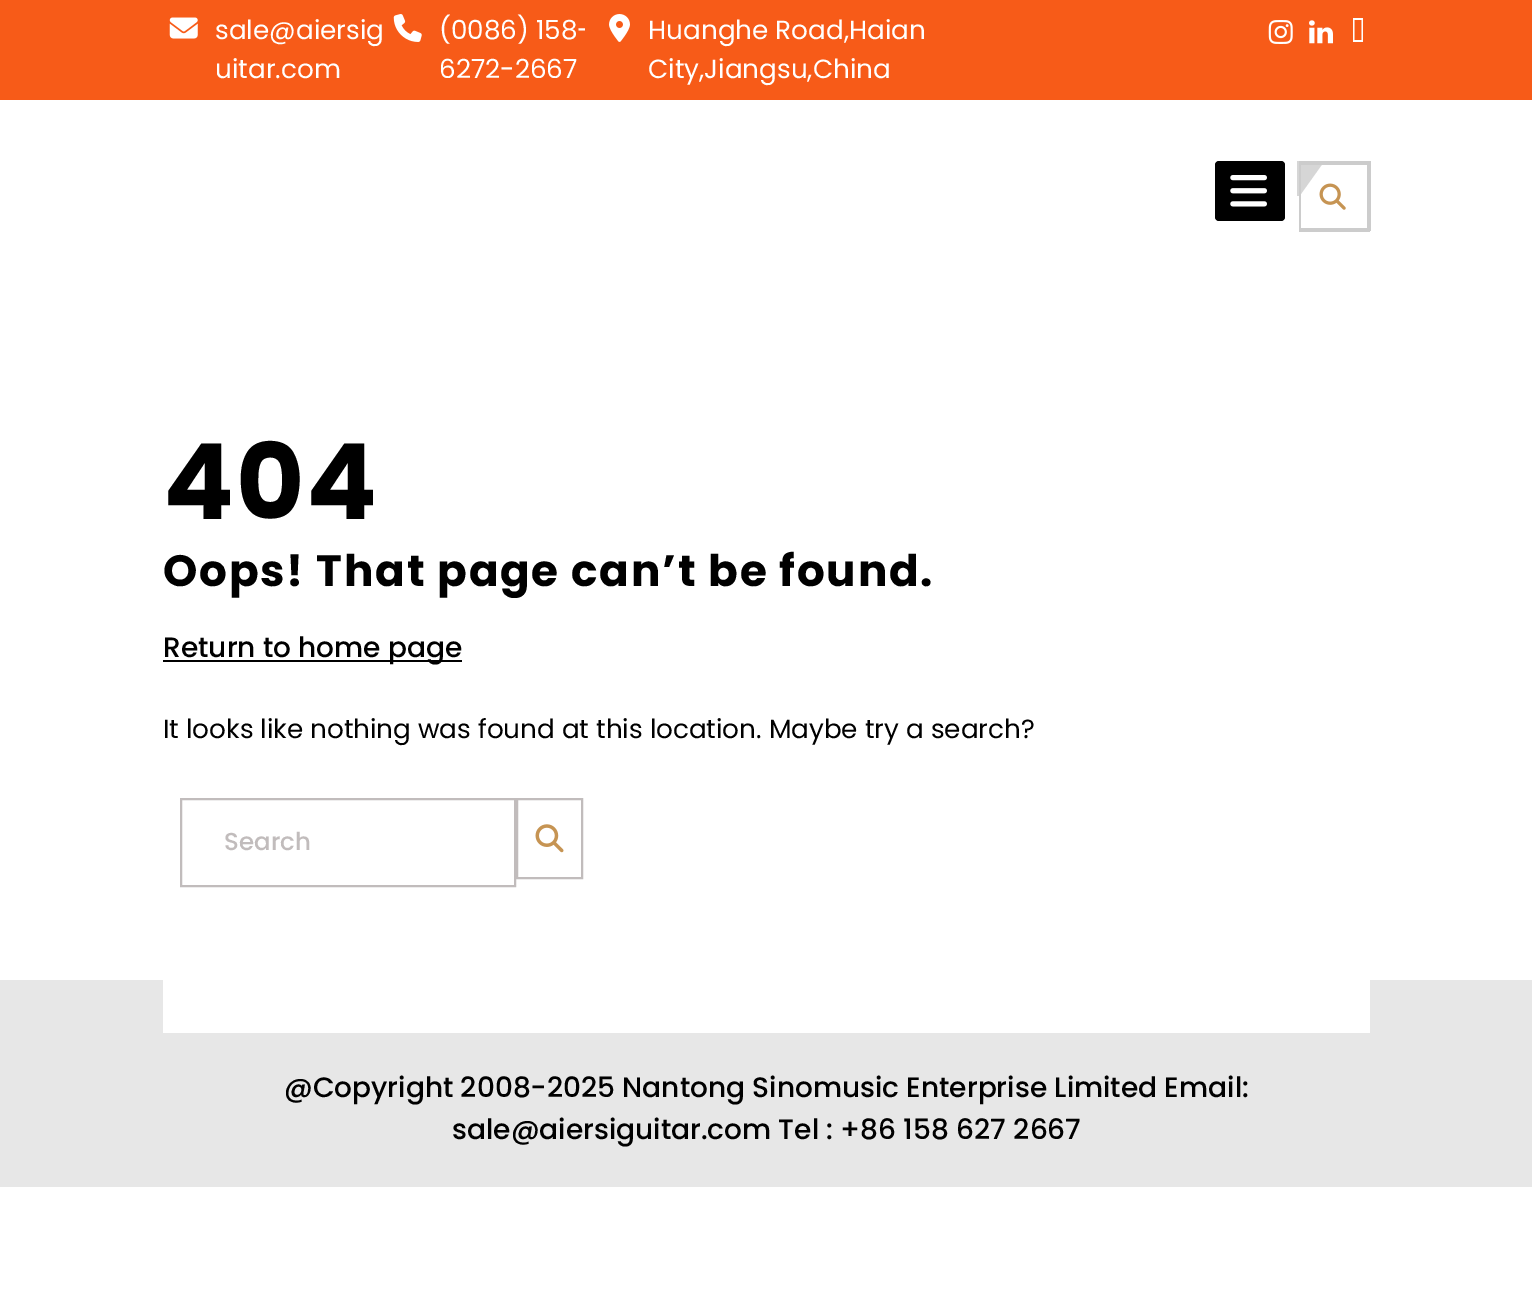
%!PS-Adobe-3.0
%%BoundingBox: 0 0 1532 1308
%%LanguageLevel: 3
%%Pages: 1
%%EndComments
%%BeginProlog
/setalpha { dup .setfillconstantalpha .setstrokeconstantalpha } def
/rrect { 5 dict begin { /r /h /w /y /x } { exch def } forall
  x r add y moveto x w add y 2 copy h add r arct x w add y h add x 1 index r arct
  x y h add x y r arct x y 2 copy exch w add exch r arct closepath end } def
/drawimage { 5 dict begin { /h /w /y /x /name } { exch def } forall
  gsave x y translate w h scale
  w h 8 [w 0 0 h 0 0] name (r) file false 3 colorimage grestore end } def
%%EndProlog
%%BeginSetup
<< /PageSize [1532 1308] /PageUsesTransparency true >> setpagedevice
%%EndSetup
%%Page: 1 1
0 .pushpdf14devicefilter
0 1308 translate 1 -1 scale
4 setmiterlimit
1 setgray
0 0 1532 1308 rectfill
0.969 0.357 0.094 setrgbcolor
0 0 1532 100 rectfill
(images/1.raw) 169 17 29 22 drawimage
(images/2.raw) 393 14 29 28 drawimage
(images/3.raw) 609 14 21 28 drawimage
(images/4.raw) 1268 20 25 24 drawimage
(images/5.raw) 1309 20 24 24 drawimage
1 setgray
newpath 1354.5 40 moveto 1361.5 40 lineto 1361.5 20 lineto 1354.5 20 lineto closepath 1353 42 moveto 1353 18 lineto 1363 18 lineto 1363 42 lineto closepath fill
0 setgray
1215 161 70 60 4 rrect fill
(images/6.raw) 1230 175 37 32 drawimage
0.8 setgray
1299 161 71 4 rectfill
1367 161 4 70 rectfill
1299 228 71 4 rectfill
1299 161 2 70 rectfill
(images/7.raw) 1319 183 27 27 drawimage
0.8 setalpha
newpath 1297 161 moveto 1297 196 lineto 1299.5 196 lineto 1324.5 161 lineto closepath fill
1 setalpha
0 setgray
163 660 299 2 rectfill
0.757 0.737 0.737 setrgbcolor
2 setlinewidth
181 799 334 87 rectstroke
517 799 65 79 rectstroke
(images/8.raw) 535 824 29 29 drawimage
0.906 setgray
0 980 1532 207 rectfill
1 setgray
163 980 1207 53 rectfill
/Poppins-Regular [26.25 0 0 -26.25 0 0] selectfont
215 39 moveto (sale@aiersig) show
215 78 moveto (uitar.com) show
gsave
383 11 202 78 rectclip
439 39 moveto (\(0086\) 158-) show
grestore
439 78 moveto (6272-2667) show
648 39 moveto (Huanghe Road,Haian) show
648 78 moveto (City,Jiangsu,China) show
/Poppins-Bold [105 0 0 -105 0 0] selectfont
0 setgray
163 519 moveto 1.75 0 (404) ashow
/Poppins-Bold [43.75 0 0 -43.75 0 0] selectfont
163 586 moveto 1.75 0 (Oops! That page can’t be found.) ashow
/Poppins-Medium [28 0 0 -28 0 0] selectfont
163 657 moveto (Return to home page) show
/Poppins-Regular [26.25 0 0 -26.25 0 0] selectfont
163 738 moveto (It looks like nothing was found at this location. Maybe try a search?) show
/Poppins-Medium [24.5 0 0 -24.5 0 0] selectfont
0.757 0.737 0.737 setrgbcolor
224 850 moveto (Search) show
/Poppins-Medium [28 0 0 -28 0 0] selectfont
0 setgray
284 1097 moveto (@Copyright 2008-2025 Nantong Sinomusic Enterprise Limited Email:) show
452 1139 moveto (sale@aiersiguitar.com Tel : +86 158 627 2667) show
.poppdf14devicefilter showpage
%%EOF
